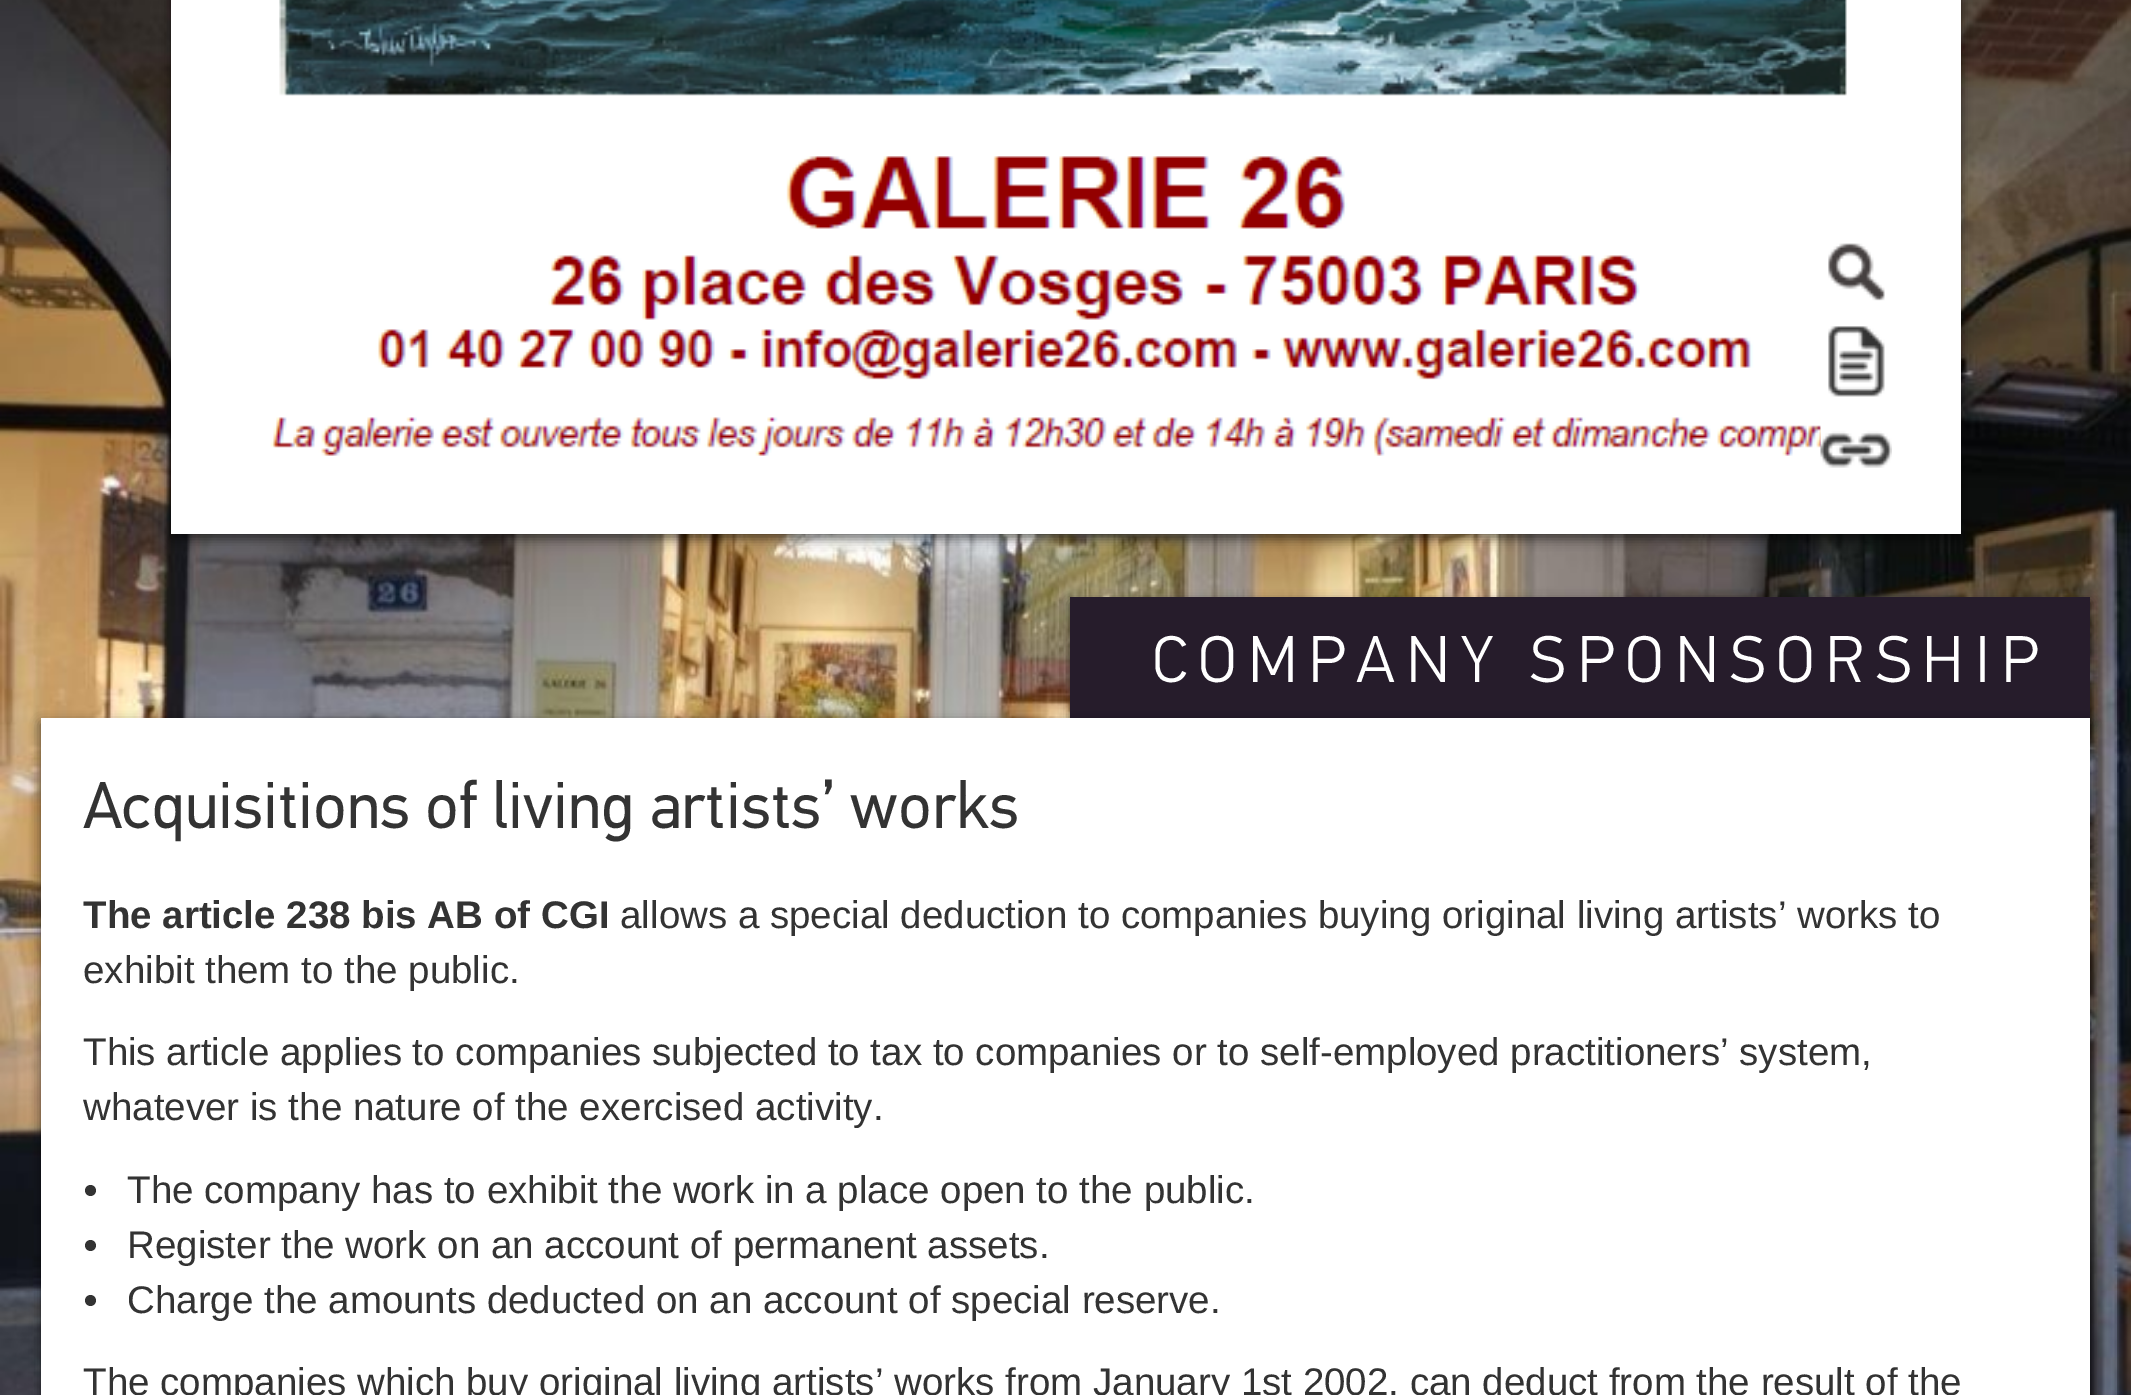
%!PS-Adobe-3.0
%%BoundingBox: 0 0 2131 1395
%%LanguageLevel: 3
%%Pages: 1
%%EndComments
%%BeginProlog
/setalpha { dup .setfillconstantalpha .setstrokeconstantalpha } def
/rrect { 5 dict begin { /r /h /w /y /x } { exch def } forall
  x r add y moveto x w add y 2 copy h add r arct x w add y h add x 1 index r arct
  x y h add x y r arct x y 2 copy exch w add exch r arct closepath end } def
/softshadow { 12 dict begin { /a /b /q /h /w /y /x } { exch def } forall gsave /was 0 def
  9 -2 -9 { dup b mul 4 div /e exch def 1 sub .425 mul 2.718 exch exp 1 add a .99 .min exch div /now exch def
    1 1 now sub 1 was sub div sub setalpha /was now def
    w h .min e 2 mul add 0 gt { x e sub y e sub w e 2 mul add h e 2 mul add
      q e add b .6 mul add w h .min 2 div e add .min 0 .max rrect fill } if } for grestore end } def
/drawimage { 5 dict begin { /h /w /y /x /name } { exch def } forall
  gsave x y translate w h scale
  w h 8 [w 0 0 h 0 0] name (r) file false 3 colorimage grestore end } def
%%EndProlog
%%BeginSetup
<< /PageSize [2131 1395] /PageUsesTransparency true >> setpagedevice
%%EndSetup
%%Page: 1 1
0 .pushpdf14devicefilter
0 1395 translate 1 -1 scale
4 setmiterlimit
1 setgray
0 0 2131 1395 rectfill
(images/1.raw) 0 0 2131 1395 drawimage
0 setgray
171 -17 1790 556 0 5.5 0.55 softshadow
1 setgray
171 0 1790 534 rectfill
(images/2.raw) 270 0 1588 456 drawimage
(images/3.raw) 1828 243 57 58 drawimage
(images/4.raw) 1828 326 57 71 drawimage
(images/5.raw) 1820 417 72 51 drawimage
0 setgray
1070 602 1020 121 0 5.5 0.55 softshadow
0.149 0.11 0.169 setrgbcolor
1070 597 1020 121 rectfill
0 setgray
41 723 2049 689 0 5.5 0.55 softshadow
1 setgray
41 718 2049 677 rectfill
0.2 setgray
newpath 90.5 1190.5 5.5 0 360 arc closepath fill
newpath 90.5 1245.5 5.5 0 360 arc closepath fill
newpath 90.5 1300.5 5.5 0 360 arc closepath fill
/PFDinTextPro-Light [66 0 0 -66 0 0] selectfont
1 setgray
1152 682 moveto 11 0 (COMPANY SPONSORSHIP) ashow
/PFDinTextPro-Regular [66 0 0 -66 0 0] selectfont
0.2 setgray
83 828 moveto (Acquisitions of living artists’ works) show
/LiberationSans-Bold [38.5 0 0 -38.5 0 0] selectfont
83 928 moveto (The article 238 bis AB of CGI) show
/LiberationSans-Regular [38.5 0 0 -38.5 0 0] selectfont
620 928 moveto (allows a special deduction to companies buying original living artists’ works to) show
83 983 moveto (exhibit them to the public.) show
83 1065 moveto (This article applies to companies subjected to tax to companies or to self-employed practitioners’ system,) show
83 1120 moveto (whatever is the nature of the exercised activity.) show
127 1203 moveto (The company has to exhibit the work in a place open to the public.) show
127 1258 moveto (Register the work on an account of permanent assets.) show
127 1313 moveto (Charge the amounts deducted on an account of special reserve.) show
83 1395 moveto (The companies which buy original living artists’ works from January 1st 2002, can deduct from the result of the) show
.poppdf14devicefilter showpage
%%EOF
